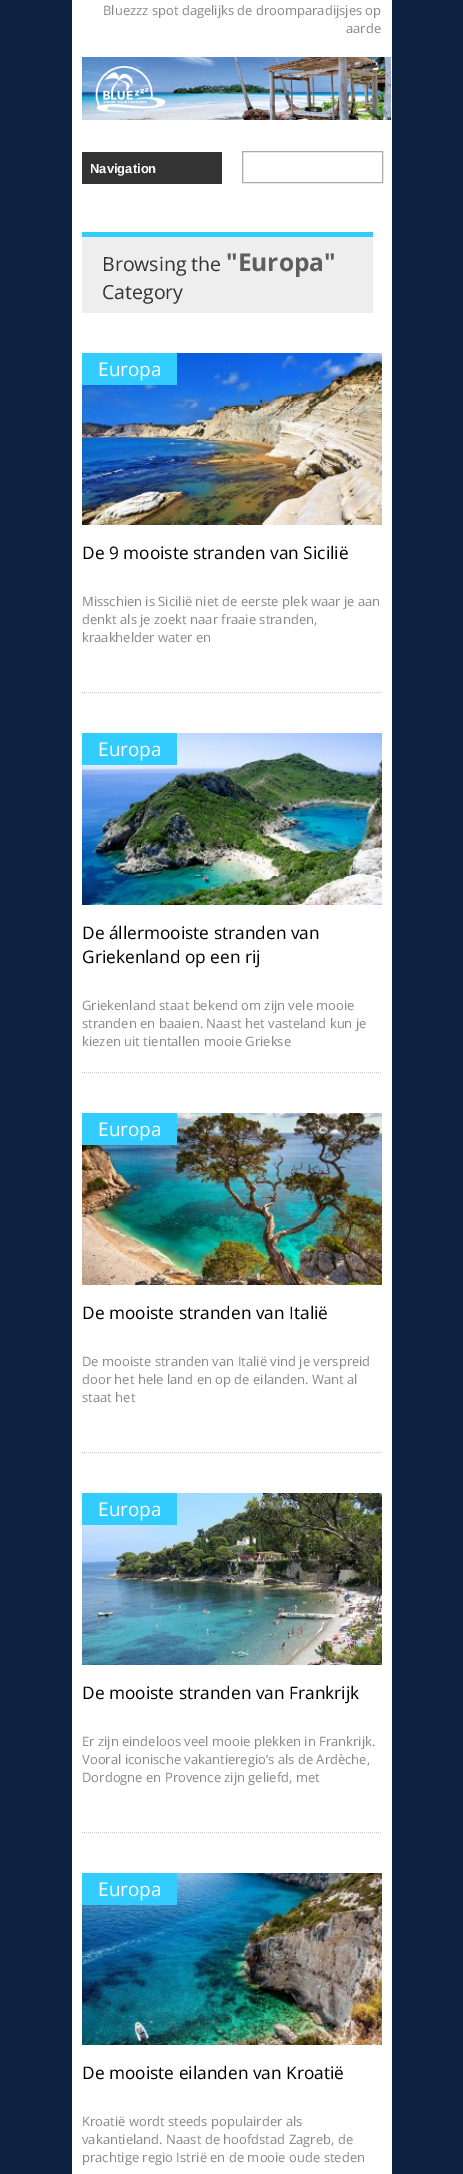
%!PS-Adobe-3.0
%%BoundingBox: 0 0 463 2174
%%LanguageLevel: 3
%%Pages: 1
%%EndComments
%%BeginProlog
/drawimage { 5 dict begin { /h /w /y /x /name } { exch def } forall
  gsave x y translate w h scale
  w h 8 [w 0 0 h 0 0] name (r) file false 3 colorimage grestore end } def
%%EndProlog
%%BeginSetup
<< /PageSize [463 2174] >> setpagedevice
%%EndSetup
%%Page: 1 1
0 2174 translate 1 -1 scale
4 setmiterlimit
0.047 0.133 0.251 setrgbcolor
0 0 463 2174 rectfill
1 setgray
72 0 320 2174 rectfill
(images/1.raw) 82 57 309 63 drawimage
0.2 setgray
82 152 140 32 rectfill
0.667 setgray
242.5 151.5 140 31 rectstroke
0.933 setgray
82 237 291 76 rectfill
0.2 0.8 1 setrgbcolor
82 232 291 5 rectfill
0.8 setgray
[1 1] 0 setdash
newpath 82 692.5 moveto 382 692.5 lineto stroke
(images/2.raw) 82 353 300 172 drawimage
0.2 0.8 1 setrgbcolor
82 353 95 32 rectfill
0.8 setgray
newpath 82 1072.5 moveto 382 1072.5 lineto stroke
(images/3.raw) 82 733 300 172 drawimage
0.2 0.8 1 setrgbcolor
82 733 95 32 rectfill
0.8 setgray
newpath 82 1452.5 moveto 382 1452.5 lineto stroke
(images/4.raw) 82 1113 300 172 drawimage
0.2 0.8 1 setrgbcolor
82 1113 95 32 rectfill
0.8 setgray
newpath 82 1832.5 moveto 382 1832.5 lineto stroke
(images/5.raw) 82 1493 300 172 drawimage
0.2 0.8 1 setrgbcolor
82 1493 95 32 rectfill
(images/6.raw) 82 1873 300 172 drawimage
82 1873 95 32 rectfill
/OpenSans-Regular [13 0 0 -13 0 0] selectfont
0.533 setgray
103 15 moveto (Bluezzz spot dagelijks de droomparadijsjes op) show
346 33 moveto (aarde) show
/LiberationSans-Bold [13 0 0 -13 0 0] selectfont
1 setgray
90 173 moveto (Navigation) show
/OpenSans-Regular [19.5 0 0 -19.5 0 0] selectfont
0.2 setgray
102 271 moveto (Browsing the) show
/OpenSans-Bold [24.5 0 0 -24.5 0 0] selectfont
0.369 setgray
226 271 moveto ("Europa") show
/OpenSans-Regular [19.5 0 0 -19.5 0 0] selectfont
0.2 setgray
102 299 moveto (Category) show
/OpenSans-Regular [19 0 0 -19 0 0] selectfont
1 setgray
98 376 moveto (Europa) show
/OpenSans-Regular [17.3 0 0 -17.3 0 0] selectfont
0 setgray
82 559 moveto (De 9 mooiste stranden van Sicilië) show
/OpenSans-Regular [13 0 0 -13 0 0] selectfont
0.533 setgray
82 606 moveto (Misschien is Sicilië niet de eerste plek waar je aan) show
82 624 moveto (denkt als je zoekt naar fraaie stranden,) show
82 642 moveto (kraakhelder water en) show
/OpenSans-Regular [19 0 0 -19 0 0] selectfont
1 setgray
98 756 moveto (Europa) show
/OpenSans-Regular [17.3 0 0 -17.3 0 0] selectfont
0 setgray
82 939 moveto (De állermooiste stranden van) show
82 963 moveto (Griekenland op een rij) show
/OpenSans-Regular [13 0 0 -13 0 0] selectfont
0.533 setgray
82 1010 moveto (Griekenland staat bekend om zijn vele mooie) show
82 1028 moveto (stranden en baaien. Naast het vasteland kun je) show
82 1046 moveto (kiezen uit tientallen mooie Griekse) show
/OpenSans-Regular [19 0 0 -19 0 0] selectfont
1 setgray
98 1136 moveto (Europa) show
/OpenSans-Regular [17.3 0 0 -17.3 0 0] selectfont
0 setgray
82 1319 moveto (De mooiste stranden van Italië) show
/OpenSans-Regular [13 0 0 -13 0 0] selectfont
0.533 setgray
82 1366 moveto (De mooiste stranden van Italië vind je verspreid) show
82 1384 moveto (door het hele land en op de eilanden. Want al) show
82 1402 moveto (staat het) show
/OpenSans-Regular [19 0 0 -19 0 0] selectfont
1 setgray
98 1516 moveto (Europa) show
/OpenSans-Regular [17.3 0 0 -17.3 0 0] selectfont
0 setgray
82 1699 moveto (De mooiste stranden van Frankrijk) show
/OpenSans-Regular [13 0 0 -13 0 0] selectfont
0.533 setgray
82 1746 moveto (Er zijn eindeloos veel mooie plekken in Frankrijk.) show
82 1764 moveto (Vooral iconische vakantieregio’s als de Ardèche,) show
82 1782 moveto (Dordogne en Provence zijn geliefd, met) show
/OpenSans-Regular [19 0 0 -19 0 0] selectfont
1 setgray
98 1896 moveto (Europa) show
/OpenSans-Regular [17.3 0 0 -17.3 0 0] selectfont
0 setgray
82 2079 moveto (De mooiste eilanden van Kroatië) show
/OpenSans-Regular [13 0 0 -13 0 0] selectfont
0.533 setgray
82 2126 moveto (Kroatië wordt steeds populairder als) show
82 2144 moveto (vakantieland. Naast de hoofdstad Zagreb, de) show
82 2162 moveto (prachtige regio Istrië en de mooie oude steden) show
showpage
%%EOF
